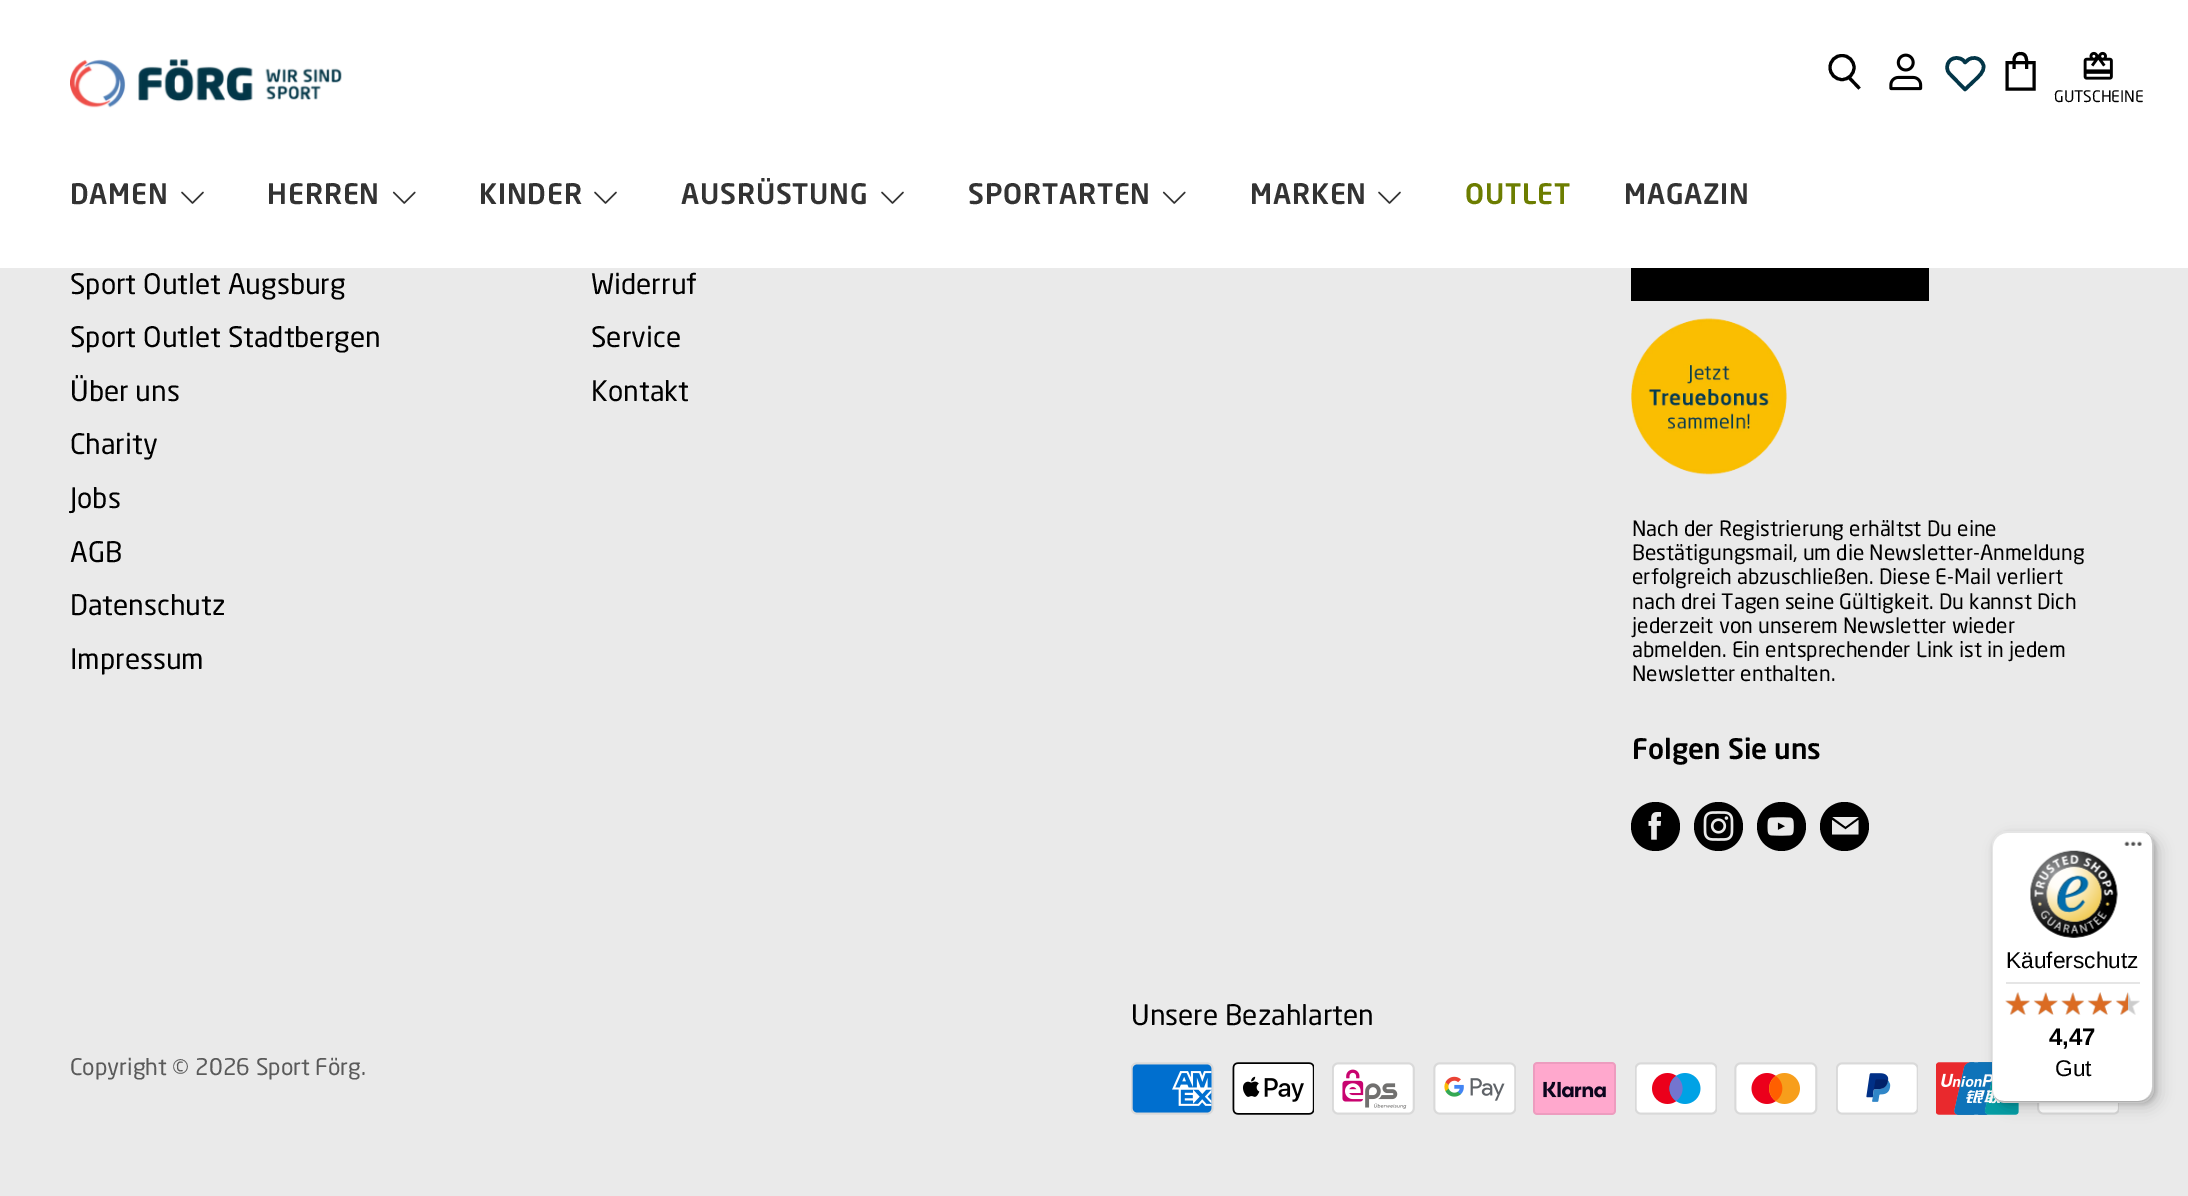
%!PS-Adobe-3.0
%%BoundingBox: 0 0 2188 1196
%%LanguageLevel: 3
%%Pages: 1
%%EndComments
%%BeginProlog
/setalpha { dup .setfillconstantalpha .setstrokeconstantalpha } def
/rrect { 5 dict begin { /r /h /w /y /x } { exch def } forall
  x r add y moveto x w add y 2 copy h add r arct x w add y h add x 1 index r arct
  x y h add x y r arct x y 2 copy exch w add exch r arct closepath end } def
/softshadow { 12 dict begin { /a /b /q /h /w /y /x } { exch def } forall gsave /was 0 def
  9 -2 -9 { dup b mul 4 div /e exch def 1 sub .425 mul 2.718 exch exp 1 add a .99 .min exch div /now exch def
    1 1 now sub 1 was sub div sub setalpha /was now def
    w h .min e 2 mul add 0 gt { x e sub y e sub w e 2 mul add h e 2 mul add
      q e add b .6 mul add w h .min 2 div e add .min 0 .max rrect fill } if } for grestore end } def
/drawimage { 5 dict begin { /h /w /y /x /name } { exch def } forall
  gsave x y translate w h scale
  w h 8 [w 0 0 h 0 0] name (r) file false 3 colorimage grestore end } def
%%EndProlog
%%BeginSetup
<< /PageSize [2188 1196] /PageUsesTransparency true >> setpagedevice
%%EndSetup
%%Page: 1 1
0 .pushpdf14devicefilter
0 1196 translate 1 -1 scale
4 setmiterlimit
0.918 setgray
0 0 2188 1196 rectfill
1 setgray
0 0 2188 268 rectfill
(images/1.raw) 70 59 272 49 drawimage
0 setgray
3.1 setlinewidth
newpath 1859.5 88.5 moveto 1849 77.5 lineto stroke
newpath 1842 67.5 12 0 360 arc closepath stroke
(images/2.raw) 1889 53 34 38 drawimage
0.012 0.212 0.282 setrgbcolor
3.5 setlinewidth
1 setlinecap
1 setlinejoin
newpath 1980.5 60.5 moveto 1977.5 57.5 1972.5 57 1968.5 59.5 curveto 1965 62.5 lineto 1963.5 60.5 lineto 1959.5 57 1953.5 57 1950 60.5 curveto 1946 64.5 1946 70.5 1950 74 curveto 1965 89.5 lineto 1974.5 80.5 lineto 1978.5 76.5 1984.5 72 1983.5 65.5 curveto 1983 63.5 1982 62 1980.5 60.5 curveto closepath stroke
0 setgray
3.1 setlinewidth
0 setlinecap
0 setlinejoin
newpath 2007 62.5 moveto 2034 62.5 lineto 2034 89 lineto 2007 89 lineto closepath 2026.5 69 moveto 2026.5 60.5 lineto 2026.5 55.5 2024 53.5 2020.5 53.5 curveto 2017 53.5 2014 55.5 2014 60.5 curveto 2014 69 lineto stroke
(images/3.raw) 2083 51 30 29 drawimage
(images/4.raw) 181 191 23 13 drawimage
(images/5.raw) 392 191 24 13 drawimage
(images/4.raw) 594 191 23 13 drawimage
(images/4.raw) 881 191 23 13 drawimage
(images/5.raw) 1162 191 24 13 drawimage
(images/4.raw) 1378 191 23 13 drawimage
1631 268 298 33 rectfill
(images/6.raw) 1631 318 156 157 drawimage
newpath 1655.5 826.5 24.5 0 360 arc closepath fill
(images/7.raw) 1648 812 14 28 drawimage
newpath 1718.5 826.5 24.5 0 360 arc closepath fill
(images/8.raw) 1703 811 31 30 drawimage
newpath 1781.5 826.5 24.5 0 360 arc closepath fill
(images/9.raw) 1767 817 27 19 drawimage
newpath 1844.5 826.5 24.5 0 360 arc closepath fill
0.918 setgray
newpath 1858.5 817 moveto 1832.5 817 lineto 1845.5 826.5 lineto closepath 1845.5 829.5 moveto 1832 820 lineto 1832 834.5 lineto 1858.5 834.5 lineto 1858.5 820 lineto closepath eofill
(images/10.raw) 1131 1062 83 53 drawimage
(images/11.raw) 1232 1062 82 53 drawimage
(images/12.raw) 1332 1062 83 53 drawimage
(images/13.raw) 1433 1062 83 53 drawimage
(images/14.raw) 1533 1062 83 53 drawimage
(images/15.raw) 1635 1062 82 53 drawimage
(images/16.raw) 1734 1062 84 53 drawimage
(images/17.raw) 1836 1062 82 53 drawimage
(images/18.raw) 1936 1062 83 53 drawimage
(images/19.raw) 2037 1103 82 12 drawimage
0 setgray
1997 837 163 271 14 7 0.15 softshadow
1993 833 163 271 14 2 0.15 softshadow
1 setgray
1992 831 162 272 14 rrect fill
0.1 setalpha
0 setgray
newpath 2007 833 moveto 2142 833 lineto 2145 833 2148 834 2150 836 curveto 2148 833 2144 831 2140 831 curveto 2006 831 lineto 1998 831 1992 837 1992 845 curveto 1992 1089 lineto 1992 1094 1994 1098 1998 1100 curveto 1995 1098 1993 1094 1993 1090 curveto 1993 847 lineto 1993 839 2000 833 2007 833 curveto closepath fill
0.2 setalpha
newpath 1995 1097 moveto 1997 1101 2001 1103 2006 1103 curveto 2140 1103 lineto 2148 1103 2154 1097 2154 1089 curveto 2154 845 lineto 2154 839 2151 835 2146 832 curveto 2150 835 2152 839 2152 844 curveto 2152 1087 lineto 2152 1094 2146 1101 2138 1101 curveto 2004 1101 lineto 2000 1101 1997 1100 1995 1097 curveto closepath fill
0.196 setgray
newpath 1995 1097 moveto 1997 1101 2001 1103 2006 1103 curveto 2140 1103 lineto 2148 1103 2154 1097 2154 1089 curveto 2154 845 lineto 2154 841 2153 838 2150 836 curveto 2152 838 2153 841 2153 844 curveto 2153 1087 lineto 2153 1095 2147 1101 2139 1101 curveto 2004 1101 lineto 2001 1101 1997 1100 1995 1097 curveto closepath fill
0.3 setalpha
1 setgray
newpath 1995 1097 moveto 1997 1101 2001 1103 2006 1103 curveto 2140 1103 lineto 2148 1103 2154 1097 2154 1089 curveto 2154 845 lineto 2154 840 2152 836 2149 834 curveto 2151 837 2153 840 2153 844 curveto 2153 1088 lineto 2153 1095 2147 1102 2139 1102 curveto 2005 1102 lineto 2001 1102 1997 1100 1995 1097 curveto closepath fill
1 setalpha
(images/20.raw) 2124 841 18 5 drawimage
(images/21.raw) 2030 850 88 88 drawimage
0.898 setgray
2006 982 134 2 rectfill
(images/22.raw) 2005 992 25 23 drawimage
(images/23.raw) 2034 992 24 23 drawimage
(images/24.raw) 2061 993 23 22 drawimage
(images/25.raw) 2088 992 24 23 drawimage
(images/26.raw) 2116 992 24 23 drawimage
(images/27.raw) 2005 992 25 23 drawimage
(images/28.raw) 2033 992 25 23 drawimage
(images/29.raw) 2061 992 24 23 drawimage
(images/30.raw) 2087 992 25 23 drawimage
(images/31.raw) 2115 992 13 23 drawimage
/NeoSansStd-Regular [15.75 0 0 -15.75 0 0] selectfont
0 setgray
2054 102 moveto (GUTSCHEINE) show
/NeoSansStd-Medium [28 0 0 -28 0 0] selectfont
0.2 setgray
70 204 moveto 0.75 0 (DAMEN) ashow
267 204 moveto 0.75 0 (HERREN) ashow
479 204 moveto 0.75 0 (KINDER) ashow
681 204 moveto 0.75 0 (AUSRÜSTUNG) ashow
968 204 moveto 0.75 0 (SPORTARTEN) ashow
1250 204 moveto 0.75 0 (MARKEN) ashow
0.424 0.49 0 setrgbcolor
1465 204 moveto 0.75 0 (OUTLET) ashow
0.2 setgray
1624 204 moveto 0.75 0 (MAGAZIN) ashow
/NeoSansStd-Regular [28 0 0 -28 0 0] selectfont
0 setgray
70 294 moveto (Sport Outlet Augsburg) show
70 347 moveto (Sport Outlet Stadtbergen) show
70 401 moveto (Über uns) show
70 454 moveto (Charity) show
70 508 moveto (Jobs) show
70 562 moveto (AGB) show
70 615 moveto (Datenschutz) show
70 669 moveto (Impressum) show
591 294 moveto (Widerruf) show
591 347 moveto (Service) show
591 401 moveto (Kontakt) show
/NeoSansStd-Regular [21 0 0 -21 0 0] selectfont
1632 536 moveto (Nach der Registrierung erhältst Du eine) show
1632 560 moveto (Bestätigungsmail, um die Newsletter-Anmeldung) show
1632 584 moveto (erfolgreich abzuschließen. Diese E-Mail verliert) show
1632 609 moveto (nach drei Tagen seine Gültigkeit. Du kannst Dich) show
1632 633 moveto (jederzeit von unserem Newsletter wieder) show
1632 657 moveto (abmelden. Ein entsprechender Link ist in jedem) show
1632 681 moveto (Newsletter enthalten.) show
/NeoSansStd-Medium [28 0 0 -28 0 0] selectfont
1632 759 moveto (Folgen Sie uns) show
/NeoSansStd-Regular [28 0 0 -28 0 0] selectfont
1131 1025 moveto (Unsere Bezahlarten) show
/NeoSansStd-Regular [22.75 0 0 -22.75 0 0] selectfont
0.353 setgray
70 1075 moveto (Copyright © 2026 Sport Förg.) show
/LiberationSans-Regular [22.75 0 0 -22.75 0 0] selectfont
0 setgray
2006 968 moveto (Käuferschutz) show
/LiberationSans-Bold [24 0 0 -24 0 0] selectfont
2049 1045 moveto (4,47) show
/LiberationSans-Regular [22.75 0 0 -22.75 0 0] selectfont
2055 1076 moveto (Gut) show
.poppdf14devicefilter showpage
%%EOF
